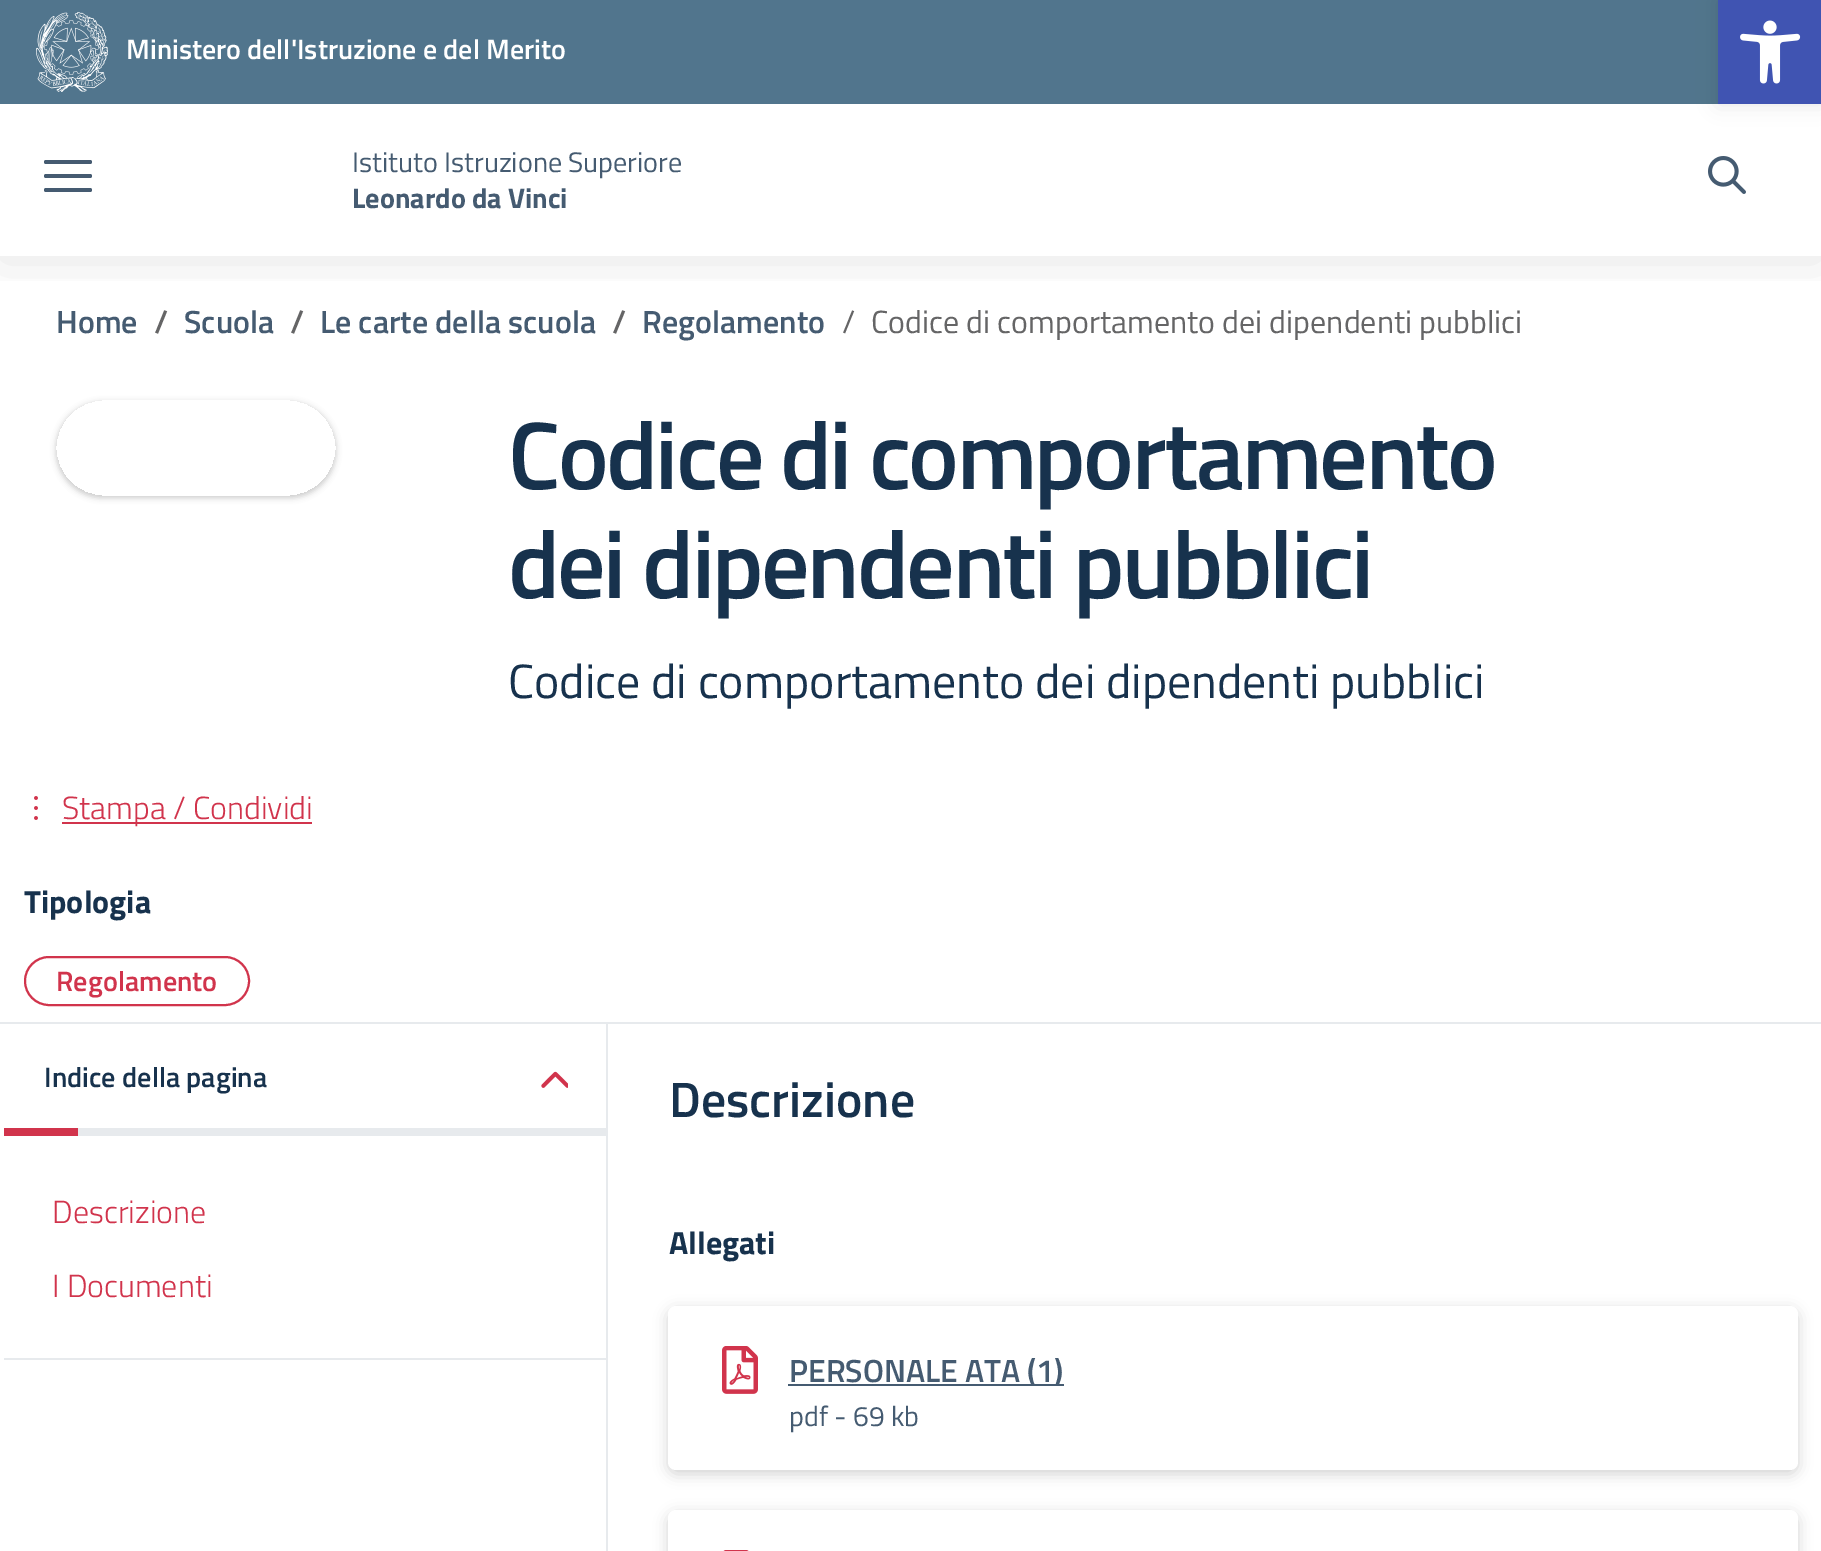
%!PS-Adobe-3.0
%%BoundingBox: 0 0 1821 1551
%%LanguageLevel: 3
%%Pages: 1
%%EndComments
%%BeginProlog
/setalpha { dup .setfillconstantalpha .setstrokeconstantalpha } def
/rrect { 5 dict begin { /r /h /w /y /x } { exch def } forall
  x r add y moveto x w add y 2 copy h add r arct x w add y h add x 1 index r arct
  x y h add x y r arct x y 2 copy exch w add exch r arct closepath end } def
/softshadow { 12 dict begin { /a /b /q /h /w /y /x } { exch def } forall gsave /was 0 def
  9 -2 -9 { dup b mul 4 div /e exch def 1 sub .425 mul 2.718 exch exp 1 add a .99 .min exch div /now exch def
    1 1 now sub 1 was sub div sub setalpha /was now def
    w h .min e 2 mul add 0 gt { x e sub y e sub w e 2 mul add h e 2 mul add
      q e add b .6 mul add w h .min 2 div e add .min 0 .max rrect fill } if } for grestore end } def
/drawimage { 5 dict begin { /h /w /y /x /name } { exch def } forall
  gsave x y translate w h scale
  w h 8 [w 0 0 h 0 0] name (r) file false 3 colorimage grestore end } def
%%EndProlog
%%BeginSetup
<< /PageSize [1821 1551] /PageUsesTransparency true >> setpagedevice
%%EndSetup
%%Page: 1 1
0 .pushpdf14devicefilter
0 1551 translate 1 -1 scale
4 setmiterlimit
1 setgray
0 0 1821 1551 rectfill
gsave
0 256 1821 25 rectclip
0 setgray
0 4 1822 256 0 25 0.1 softshadow
grestore
0.318 0.459 0.553 setrgbcolor
0 0 1718 104 rectfill
(images/1.raw) 36 12 72 80 drawimage
0.271 0.357 0.443 setrgbcolor
44 174 48 4 2 rrect fill
44 160 48 4 2 rrect fill
44 188 48 4 2 rrect fill
(images/2.raw) 1708 156 38 38 drawimage
gsave
newpath 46 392 moveto 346 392 lineto 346 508 lineto 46 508 lineto closepath 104 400 moveto 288 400 lineto 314.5 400 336 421.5 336 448 curveto 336 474.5 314.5 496 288 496 curveto 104 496 lineto 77.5 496 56 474.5 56 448 curveto 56 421.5 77.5 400 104 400 curveto closepath eoclip newpath
0 setgray
56 402 280 96 48 3 0.2 softshadow
grestore
(images/3.raw) 34 796 4 24 drawimage
0.82 0.204 0.298 setrgbcolor
62 822 250 2 rectfill
2 setlinewidth
25 957 224 48 24 rrect stroke
0.906 0.918 0.929 setrgbcolor
0 1022 1821 2 rectfill
(images/4.raw) 541 1071 27 17 drawimage
0.82 0.204 0.298 setrgbcolor
4 1128 74 8 rectfill
0.906 0.918 0.929 setrgbcolor
78 1128 530 8 rectfill
4 1358 604 2 rectfill
606 1024 2 527 rectfill
0 setgray
668 1310 1130 164 8 7 0.17 softshadow
1 setgray
668 1306 1130 164 8 rrect fill
(images/5.raw) 722 1346 36 48 drawimage
0.271 0.357 0.443 setrgbcolor
788 1384 276 2 rectfill
0 setgray
668 1514 1130 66 8 7 0.17 softshadow
1 setgray
668 1510 1130 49 8 rrect fill
(images/6.raw) 723 1550 26 1 drawimage
0 setgray
1718 0 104 104 0 10 0.1 softshadow
0.251 0.329 0.698 setrgbcolor
1718 0 103 104 rectfill
(images/7.raw) 1740 20 61 64 drawimage
/TitilliumWeb-SemiBold [28 0 0 -28 0 0] selectfont
1 setgray
126 59 moveto (Ministero dell'Istruzione e del Merito) show
/TitilliumWeb-Regular [28.2 0 0 -28.2 0 0] selectfont
0.271 0.357 0.443 setrgbcolor
352 172 moveto (Istituto Istruzione Superiore) show
/TitilliumWeb-Bold [28.2 0 0 -28.2 0 0] selectfont
352 208 moveto (Leonardo da Vinci) show
/TitilliumWeb-SemiBold [32 0 0 -32 0 0] selectfont
56 333 moveto (Home) show
0.396 0.396 0.4 setrgbcolor
154 333 moveto (/) show
0.271 0.357 0.443 setrgbcolor
184 333 moveto (Scuola) show
0.396 0.396 0.4 setrgbcolor
290 333 moveto (/) show
0.271 0.357 0.443 setrgbcolor
320 333 moveto (Le carte della scuola) show
0.396 0.396 0.4 setrgbcolor
612 333 moveto (/) show
0.271 0.357 0.443 setrgbcolor
642 333 moveto (Regolamento) show
/TitilliumWeb-Regular [32 0 0 -32 0 0] selectfont
0.396 0.396 0.4 setrgbcolor
842 333 moveto (/) show
871 333 moveto (Codice di comportamento dei dipendenti pubblici) show
/TitilliumWeb-SemiBold [96 0 0 -96 0 0] selectfont
0.09 0.196 0.302 setrgbcolor
508 489 moveto -2.6 0 (Codice di comportamento) ashow
508 598 moveto -2.6 0 (dei dipendenti pubblici) ashow
/TitilliumWeb-Regular [48 0 0 -48 0 0] selectfont
508 698 moveto (Codice di comportamento dei dipendenti pubblici) show
/TitilliumWeb-Light [32 0 0 -32 0 0] selectfont
0.82 0.204 0.298 setrgbcolor
62 819 moveto (Stampa / Condividi) show
/TitilliumWeb-Bold [32 0 0 -32 0 0] selectfont
0.09 0.196 0.302 setrgbcolor
24 913 moveto (Tipologia) show
/TitilliumWeb-SemiBold [28.2 0 0 -28.2 0 0] selectfont
0.82 0.204 0.298 setrgbcolor
56 991 moveto (Regolamento) show
0.09 0.196 0.302 setrgbcolor
44 1087 moveto (Indice della pagina) show
/TitilliumWeb-Light [32 0 0 -32 0 0] selectfont
0.82 0.204 0.298 setrgbcolor
52 1223 moveto (Descrizione) show
52 1297 moveto (I Documenti) show
/TitilliumWeb-SemiBold [49.75 0 0 -49.75 0 0] selectfont
0.09 0.196 0.302 setrgbcolor
669 1117 moveto (Descrizione) show
/TitilliumWeb-Bold [32 0 0 -32 0 0] selectfont
669 1254 moveto (Allegati) show
/TitilliumWeb-SemiBold [32 0 0 -32 0 0] selectfont
0.271 0.357 0.443 setrgbcolor
789 1382 moveto (PERSONALE ATA \(1\)) show
/TitilliumWeb-Regular [28.2 0 0 -28.2 0 0] selectfont
789 1426 moveto (pdf - 69 kb) show
.poppdf14devicefilter showpage
%%EOF
